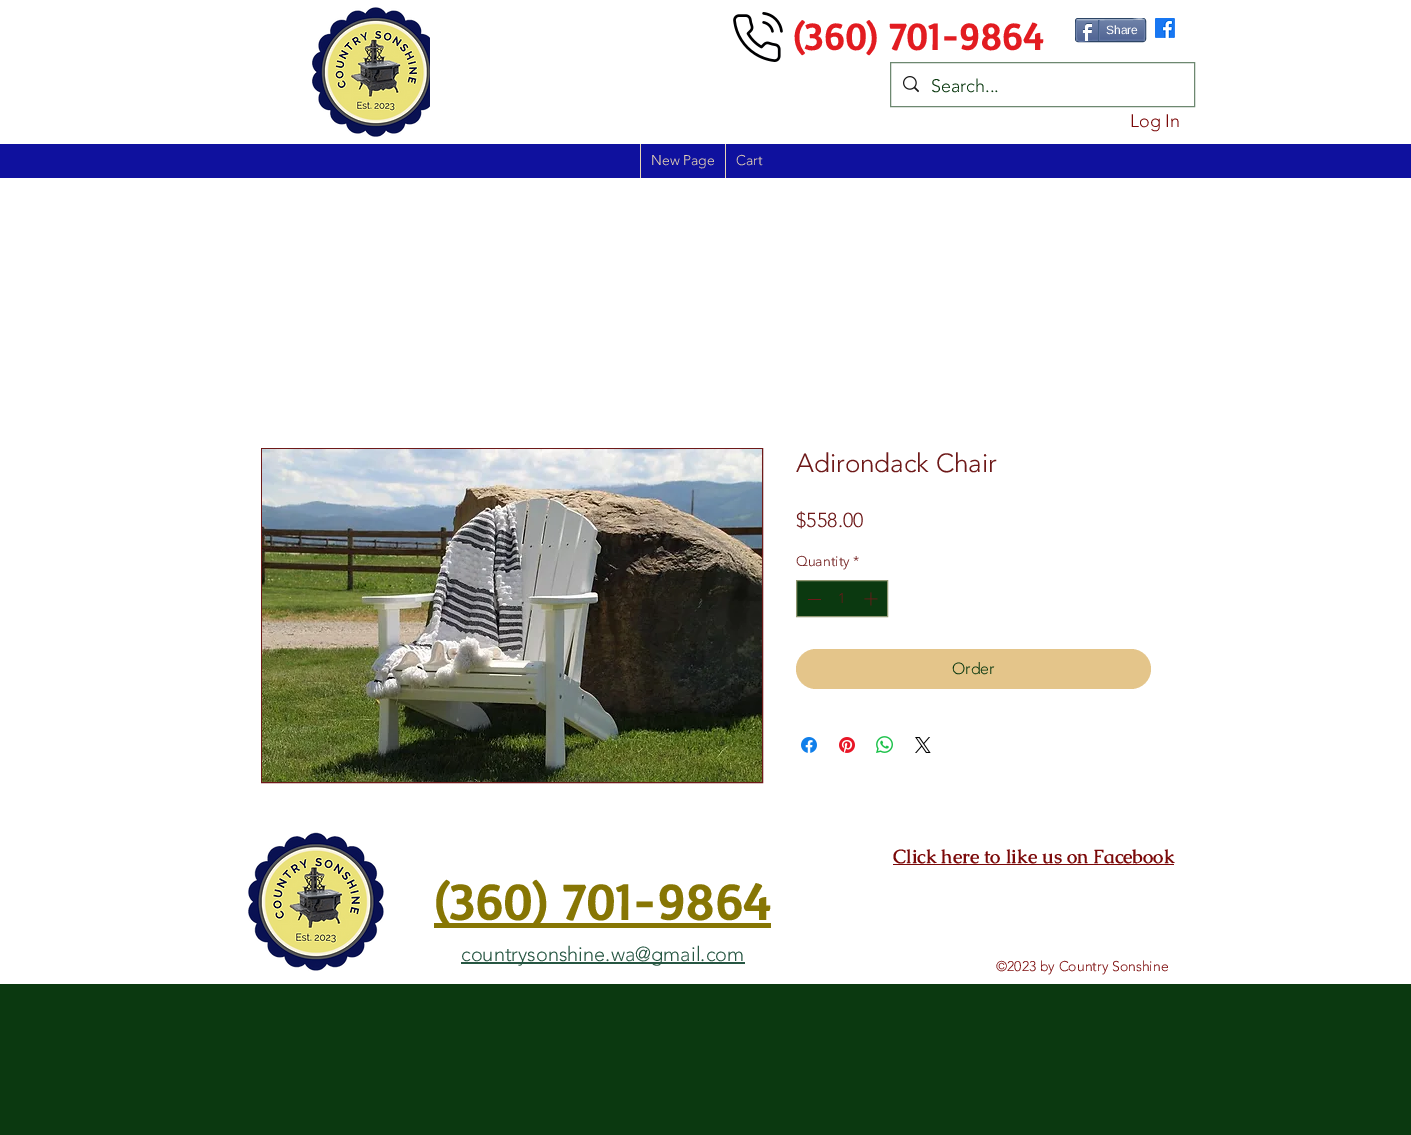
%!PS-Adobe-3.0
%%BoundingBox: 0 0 1411 1135
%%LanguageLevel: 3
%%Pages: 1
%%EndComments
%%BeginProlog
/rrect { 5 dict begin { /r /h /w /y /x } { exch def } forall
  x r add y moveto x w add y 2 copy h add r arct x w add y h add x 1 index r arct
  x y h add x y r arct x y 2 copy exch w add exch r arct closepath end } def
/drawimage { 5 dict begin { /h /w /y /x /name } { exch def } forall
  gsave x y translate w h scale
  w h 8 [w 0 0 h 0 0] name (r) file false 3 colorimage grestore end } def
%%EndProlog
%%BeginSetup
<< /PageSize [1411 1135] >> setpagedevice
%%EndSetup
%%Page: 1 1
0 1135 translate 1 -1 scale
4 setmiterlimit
0.043 0.224 0.063 setrgbcolor
0 0 1411 1135 rectfill
1 setgray
0 0 1411 984 rectfill
(images/1.raw) 312 7 118 130 drawimage
(images/2.raw) 733 12 50 50 drawimage
0.176 0.271 0.396 setrgbcolor
1075.5 18.5 70 23 2.5 rrect stroke
(images/3.raw) 1076 20 69 21 drawimage
0.604 0.671 0.776 setrgbcolor
newpath 1077 20 moveto 1132 19.5 lineto 1136 19.5 1141 17 1144 20 curveto stroke
0.435 0.514 0.678 setrgbcolor
newpath 1144 20 moveto 1145 20.5 1145 39.5 1144 40 curveto stroke
0.38 0.463 0.639 setrgbcolor
newpath 1144 40 moveto 1089 40.5 lineto 1085 40.5 1080 43 1077 40 curveto stroke
0.435 0.514 0.678 setrgbcolor
newpath 1077 40 moveto 1076 39.5 1076 20.5 1077 20 curveto stroke
(images/4.raw) 1082 23 10 18 drawimage
0.259 0.369 0.522 setrgbcolor
1098 20 1 21 rectfill
0.38 0.463 0.639 setrgbcolor
1099 20 1 20 rectfill
(images/5.raw) 1155 18 20 20 drawimage
0.427 0.533 0.439 setrgbcolor
890.5 62.5 304 44 rectstroke
(images/6.raw) 903 76 16 17 drawimage
0.059 0.067 0.62 setrgbcolor
0 144 1411 34 rectfill
0.918 0.843 0.71 setrgbcolor
640 144 1 34 rectfill
725 144 1 34 rectfill
0.431 0.098 0.098 setrgbcolor
261.5 448.5 501 334 rectstroke
(images/7.raw) 262 449 500 333 drawimage
0.043 0.224 0.063 setrgbcolor
newpath 796.5 580.5 moveto 887.5 580.5 lineto 887.5 616.5 lineto 796.5 616.5 lineto closepath gsave fill grestore
0.569 0.596 0.451 setrgbcolor
stroke
0.431 0.098 0.098 setrgbcolor
808 599 13 1 rectfill
(images/8.raw) 864 592 14 14 drawimage
0.894 0.773 0.541 setrgbcolor
796 649 355 40 20 rrect fill
(images/9.raw) 801 737 16 16 drawimage
(images/10.raw) 839 737 16 16 drawimage
(images/11.raw) 876 736 17 17 drawimage
(images/12.raw) 915 737 16 16 drawimage
(images/13.raw) 248 832 136 139 drawimage
0.482 0.035 0.035 setrgbcolor
893 864 281 1 rectfill
0.529 0.463 0.016 setrgbcolor
434 923 337 5 rectfill
0.149 0.337 0.259 setrgbcolor
461 962 284 2 rectfill
/Basic-Bold [38 0 0 -38 0 0] selectfont
0.886 0.11 0.129 setrgbcolor
793 50 moveto (\(360\) 701-9864) show
/LiberationSans-Regular [12 0 0 -12 0 0] selectfont
1 setgray
1106 34 moveto (Share) show
/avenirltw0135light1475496-Light [18 0 0 -18 0 0] selectfont
0.043 0.224 0.063 setrgbcolor
931 92 moveto (Search...) show
0.482 0.035 0.035 setrgbcolor
1130 127 moveto (Log In) show
/avenirltw0135light1475496-Light [14 0 0 -14 0 0] selectfont
0.918 0.843 0.71 setrgbcolor
651 165 moveto (New Page) show
736 165 moveto (Cart) show
/avenirltw0135light1475496-Light [26 0 0 -26 0 0] selectfont
0.431 0.098 0.098 setrgbcolor
796 472 moveto (Adirondack Chair) show
/avenirltw0135light1475496-Light [20 0 0 -20 0 0] selectfont
796 527 moveto ($558.00) show
/avenirltw0135light1475496-Light [14 0 0 -14 0 0] selectfont
796 566 moveto (Quantity) show
853 566 moveto (*) show
838 603 moveto (1) show
/avenirltw0135light1475496-Light [16 0 0 -16 0 0] selectfont
0.043 0.224 0.063 setrgbcolor
952 674 moveto (Order) show
/Caudex-Bold [19 0 0 -19 0 0] selectfont
0.482 0.035 0.035 setrgbcolor
893 863 moveto (Click here to like us on Facebook) show
/Basic-Bold [51 0 0 -51 0 0] selectfont
0.529 0.463 0.016 setrgbcolor
434 920 moveto (\(360\) 701-9864) show
/avenirltw0135light1475496-Light [20 0 0 -20 0 0] selectfont
0.149 0.337 0.259 setrgbcolor
461 961 moveto (countrysonshine.wa@gmail.com) show
/avenirltw0135light1475496-Light [14 0 0 -14 0 0] selectfont
0.482 0.035 0.035 setrgbcolor
996 971 moveto (©2023 by Country Sonshine) show
showpage
%%EOF
